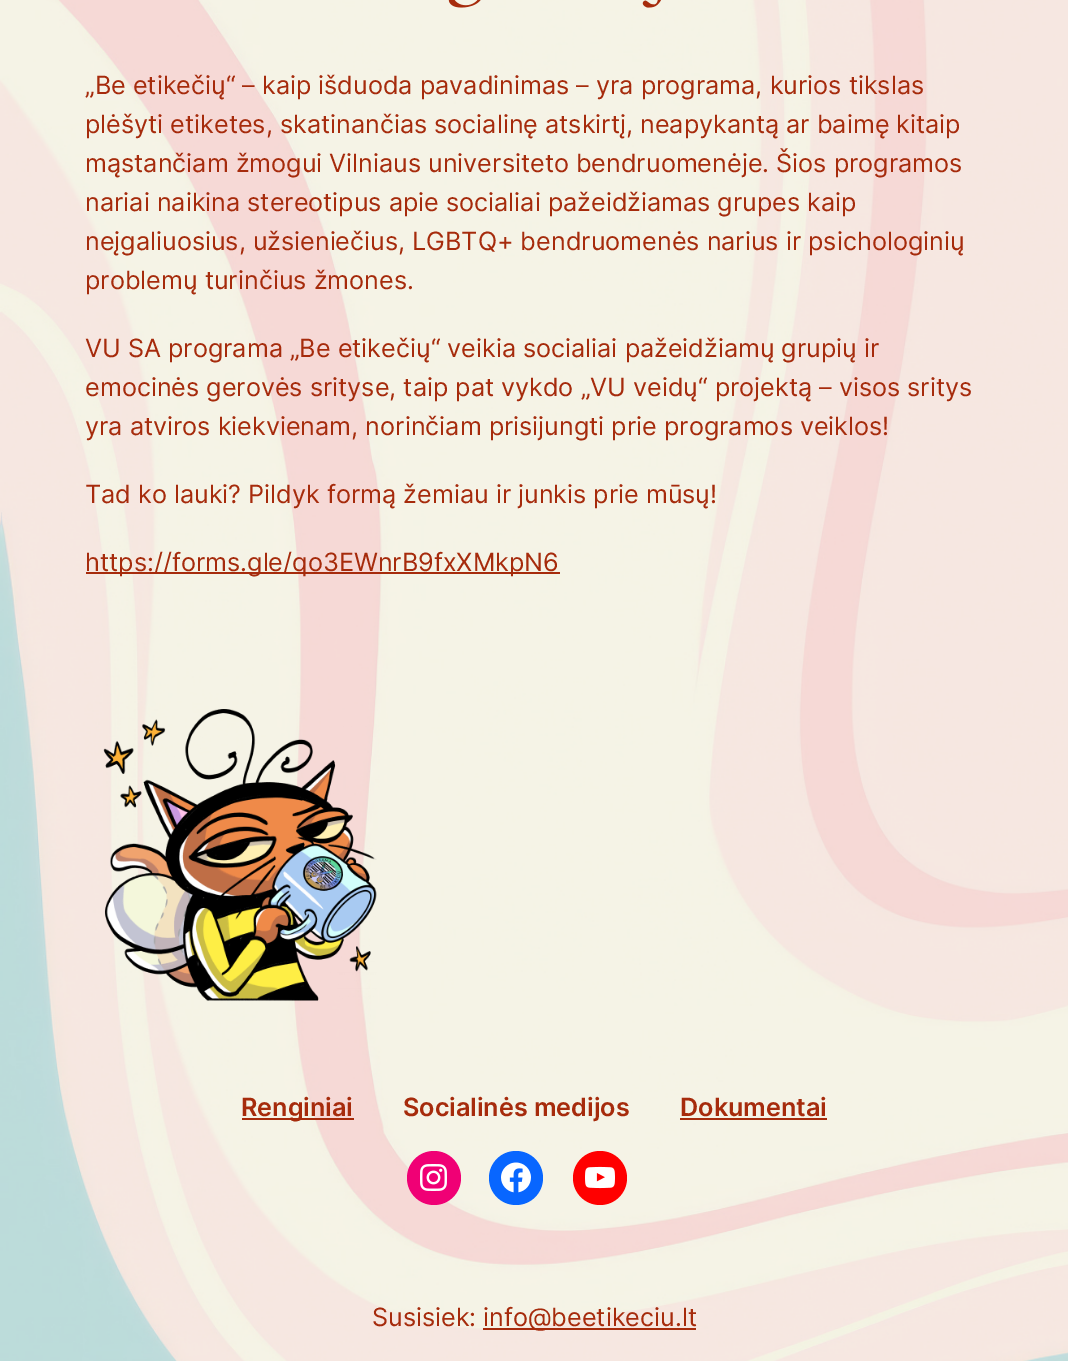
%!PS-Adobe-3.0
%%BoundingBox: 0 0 1068 1361
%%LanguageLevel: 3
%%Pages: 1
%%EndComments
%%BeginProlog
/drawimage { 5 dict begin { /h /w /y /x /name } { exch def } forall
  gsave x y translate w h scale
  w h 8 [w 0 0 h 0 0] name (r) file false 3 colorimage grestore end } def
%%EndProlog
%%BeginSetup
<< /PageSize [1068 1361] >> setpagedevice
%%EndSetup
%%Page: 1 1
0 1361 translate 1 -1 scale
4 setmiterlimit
1 setgray
0 0 1068 1361 rectfill
(images/1.raw) 0 0 1068 1361 drawimage
(images/2.raw) 448 0 213 8 drawimage
0.651 0.169 0.047 setrgbcolor
86 572 474 2 rectfill
(images/3.raw) 103 709 274 292 drawimage
242 1118 112 2 rectfill
0.941 0 0.459 setrgbcolor
newpath 434 1178 27 0 360 arc closepath fill
(images/4.raw) 420 1164 27 27 drawimage
0.031 0.4 1 setrgbcolor
newpath 516 1178 27 0 360 arc closepath fill
(images/5.raw) 501 1162 30 31 drawimage
1 0 0 setrgbcolor
newpath 600 1178 27 0 360 arc closepath fill
(images/6.raw) 585 1166 30 23 drawimage
0.651 0.169 0.047 setrgbcolor
680 1118 147 2 rectfill
483 1328 213 2 rectfill
/Inter-Regular [25.2 0 0 -25.2 0 0] selectfont
85 94 moveto („Be etikečių“ – kaip išduoda pavadinimas – yra programa, kurios tikslas) show
85 133 moveto (plėšyti etiketes, skatinančias socialinę atskirtį, neapykantą ar baimę kitaip) show
85 172 moveto (mąstančiam žmogui Vilniaus universiteto bendruomenėje. Šios programos) show
85 211 moveto (nariai naikina stereotipus apie socialiai pažeidžiamas grupes kaip) show
85 250 moveto (neįgaliuosius, užsieniečius, LGBTQ+ bendruomenės narius ir psichologinių) show
85 289 moveto (problemų turinčius žmones.) show
85 357 moveto (VU SA programa „Be etikečių“ veikia socialiai pažeidžiamų grupių ir) show
85 396 moveto (emocinės gerovės srityse, taip pat vykdo „VU veidų“ projektą – visos sritys) show
85 435 moveto (yra atviros kiekvienam, norinčiam prisijungti prie programos veiklos!) show
85 503 moveto (Tad ko lauki? Pildyk formą žemiau ir junkis prie mūsų!) show
85 571 moveto (https://forms.gle/qo3EWnrB9fxXMkpN6) show
/Inter-SemiBold [25.2 0 0 -25.2 0 0] selectfont
241 1116 moveto (Renginiai) show
403 1116 moveto (Socialinės medijos) show
680 1116 moveto (Dokumentai) show
/Inter-Regular [25.2 0 0 -25.2 0 0] selectfont
372 1326 moveto (Susisiek:) show
483 1326 moveto (info@beetikeciu.lt) show
showpage
%%EOF
